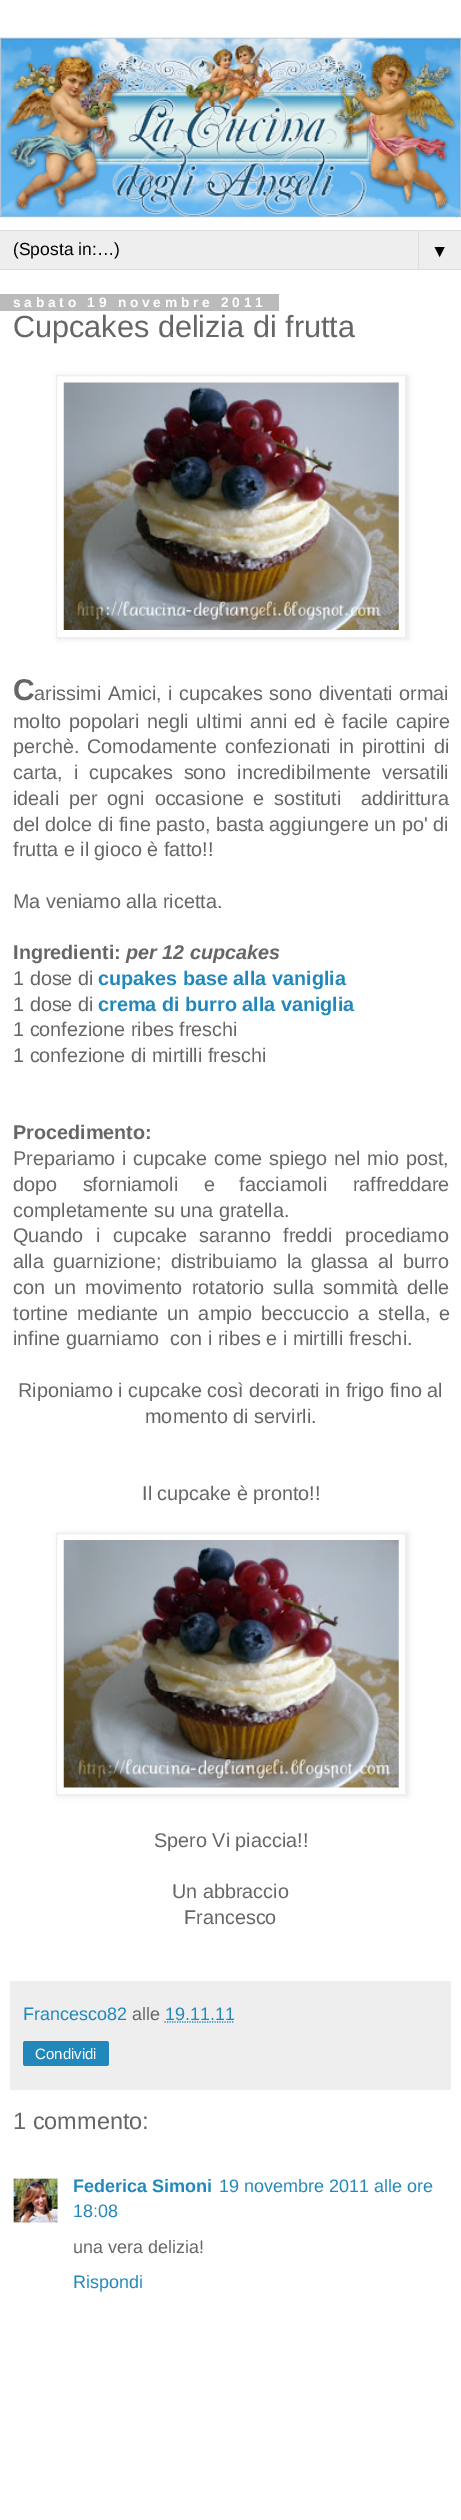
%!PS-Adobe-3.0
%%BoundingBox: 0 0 461 2520
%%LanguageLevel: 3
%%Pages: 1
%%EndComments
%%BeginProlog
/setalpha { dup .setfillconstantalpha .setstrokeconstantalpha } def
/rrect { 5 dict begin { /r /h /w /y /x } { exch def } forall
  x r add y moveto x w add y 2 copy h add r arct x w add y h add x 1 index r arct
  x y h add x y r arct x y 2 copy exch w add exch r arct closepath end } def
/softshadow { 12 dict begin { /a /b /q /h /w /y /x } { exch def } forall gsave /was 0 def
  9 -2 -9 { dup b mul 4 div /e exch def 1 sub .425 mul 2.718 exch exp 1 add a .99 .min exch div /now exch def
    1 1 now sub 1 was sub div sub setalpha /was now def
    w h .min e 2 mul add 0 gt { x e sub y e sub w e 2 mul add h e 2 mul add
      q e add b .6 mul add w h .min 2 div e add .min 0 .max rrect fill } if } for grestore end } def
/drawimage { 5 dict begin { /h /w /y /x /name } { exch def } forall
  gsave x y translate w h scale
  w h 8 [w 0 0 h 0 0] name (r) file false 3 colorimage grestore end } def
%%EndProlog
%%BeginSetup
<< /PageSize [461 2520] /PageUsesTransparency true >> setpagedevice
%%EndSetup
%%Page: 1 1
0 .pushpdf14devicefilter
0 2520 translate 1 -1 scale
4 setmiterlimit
1 setgray
0 0 461 2520 rectfill
(images/1.raw) 0 37 461 181 drawimage
0.933 setgray
0 231 461 38 rectfill
0.867 setgray
0 230 461 1 rectfill
0 269 461 1 rectfill
418 230 1 40 rectfill
0.733 setgray
0 294 279 17 rectfill
0 setgray
58 376 350 263 0 3 0.1 softshadow
1 setgray
newpath 56.5 375.5 moveto 405.5 375.5 lineto 405.5 637.5 lineto 56.5 637.5 lineto closepath gsave fill grestore
0.933 setgray
stroke
(images/2.raw) 63 382 336 248 drawimage
0 setgray
58 1534 350 262 0 3 0.1 softshadow
1 setgray
newpath 56.5 1533.5 moveto 405.5 1533.5 lineto 405.5 1794.5 lineto 56.5 1794.5 lineto closepath gsave fill grestore
0.933 setgray
stroke
(images/3.raw) 63 1540 336 248 drawimage
10 1981 441 109 rectfill
0.133 0.533 0.733 setrgbcolor
1.2 setlinewidth
[1.25 1.25] 0 setdash
newpath 164.5 2022 moveto 234.5 2022 lineto stroke
23 2041 86 25 2.5 rrect fill
gsave
13 2178 45 45 rectclip
0.933 setgray
1 setlinewidth
[] 0 setdash
13.5 2178.5 46 46 rectstroke
grestore
(images/4.raw) 13 2178 45 45 drawimage
/LiberationSans-Regular [17.5 0 0 -17.5 0 0] selectfont
0 setgray
13 255 moveto (\(Sposta in:…\)) show
431 257 moveto (▼) show
/LiberationSans-Bold [13.75 0 0 -13.75 0 0] selectfont
1 setgray
13 307 moveto 3.75 0 (sabato 19 novembre 2011) ashow
/LiberationSans-Regular [30.6 0 0 -30.6 0 0] selectfont
0.4 setgray
13 337 moveto (Cupcakes delizia di frutta) show
/LiberationSans-Bold [30 0 0 -30 0 0] selectfont
13 700 moveto (C) show
/LiberationSans-Regular [19.8 0 0 -19.8 0 0] selectfont
34 700 moveto (arissimi) show
108 700 moveto 1 0 32 (Amici, i cupcakes sono diventati ormai) widthshow
13 728 moveto 2 0 32 (molto popolari negli ultimi anni) widthshow
294 728 moveto 2 0 32 (ed è facile capire) widthshow
13 753 moveto 2.5 0 32 (perchè. Comodamente confezionati in pirottini di) widthshow
13 779 moveto 5.5 0 32 (carta, i cupcakes sono incredibilmente versatili) widthshow
13 805 moveto 4.25 0 32 (ideali per ogni occasione e sostituti  addirittura) widthshow
13 831 moveto (del dolce di fine pasto, basta aggiungere un po' di) show
13 856 moveto (frutta e il gioco è fatto!!) show
13 908 moveto (Ma veniamo alla ricetta.) show
/LiberationSans-Bold [19.8 0 0 -19.8 0 0] selectfont
13 959 moveto (Ingredienti:) show
/LiberationSans-BoldItalic [19.8 0 0 -19.8 0 0] selectfont
126 959 moveto (per 12 cupcakes) show
/LiberationSans-Regular [19.8 0 0 -19.8 0 0] selectfont
13 985 moveto (1 dose di) show
/LiberationSans-Bold [19.8 0 0 -19.8 0 0] selectfont
0.133 0.533 0.733 setrgbcolor
98 985 moveto (cupakes base alla vaniglia) show
/LiberationSans-Regular [19.8 0 0 -19.8 0 0] selectfont
0.4 setgray
13 1011 moveto (1 dose di) show
/LiberationSans-Bold [19.8 0 0 -19.8 0 0] selectfont
0.133 0.533 0.733 setrgbcolor
98 1011 moveto (crema di burro alla vaniglia) show
/LiberationSans-Regular [19.8 0 0 -19.8 0 0] selectfont
0.4 setgray
13 1036 moveto (1 confezione ribes freschi) show
13 1062 moveto (1 confezione di mirtilli freschi) show
/LiberationSans-Bold [19.8 0 0 -19.8 0 0] selectfont
13 1139 moveto (Procedimento:) show
/LiberationSans-Regular [19.8 0 0 -19.8 0 0] selectfont
13 1165 moveto (Prepariamo) show
122 1165 moveto 1.25 0 32 (i cupcake come spiego nel mio post,) widthshow
13 1191 moveto 20 0 32 (dopo sforniamoli e) widthshow
239 1191 moveto 20 0 32 (facciamoli raffreddare) widthshow
13 1217 moveto (completamente su una gratella.) show
13 1242 moveto (Quando) show
96 1242 moveto 7 0 32 (i cupcake saranno freddi procediamo) widthshow
13 1268 moveto 4 0 32 (alla guarnizione; distribuiamo la) widthshow
311 1268 moveto 4 0 32 (glassa al burro) widthshow
13 1294 moveto 3.75 0 32 (con un movimento rotatorio sulla sommità delle) widthshow
13 1320 moveto 3.5 0 32 (tortine mediante un ampio beccuccio a stella, e) widthshow
13 1345 moveto (infine guarniamo  con i ribes e i mirtilli freschi.) show
18 1397 moveto (Riponiamo i cupcake così decorati in frigo fino al) show
145 1423 moveto (momento di servirli.) show
142 1500 moveto (Il cupcake è pronto!!) show
154 1847 moveto (Spero Vi piaccia!!) show
172 1898 moveto (Un abbraccio) show
184 1924 moveto (Francesco) show
/LiberationSans-Regular [18 0 0 -18 0 0] selectfont
0.133 0.533 0.733 setrgbcolor
23 2020 moveto (Francesco82) show
0.4 setgray
132 2020 moveto (alle) show
0.133 0.533 0.733 setrgbcolor
165 2020 moveto (19.11.11) show
/LiberationSans-Regular [15 0 0 -15 0 0] selectfont
1 setgray
35 2059 moveto (Condividi) show
/LiberationSans-Regular [23.5 0 0 -23.5 0 0] selectfont
0.4 setgray
13 2129 moveto (1 commento:) show
/LiberationSans-Bold [18 0 0 -18 0 0] selectfont
0.133 0.533 0.733 setrgbcolor
73 2192 moveto (Federica Simoni) show
/LiberationSans-Regular [18 0 0 -18 0 0] selectfont
219 2192 moveto (19 novembre 2011 alle ore) show
73 2217 moveto (18:08) show
0.4 setgray
73 2253 moveto (una vera delizia!) show
0.133 0.533 0.733 setrgbcolor
73 2288 moveto (Rispondi) show
.poppdf14devicefilter showpage
%%EOF
